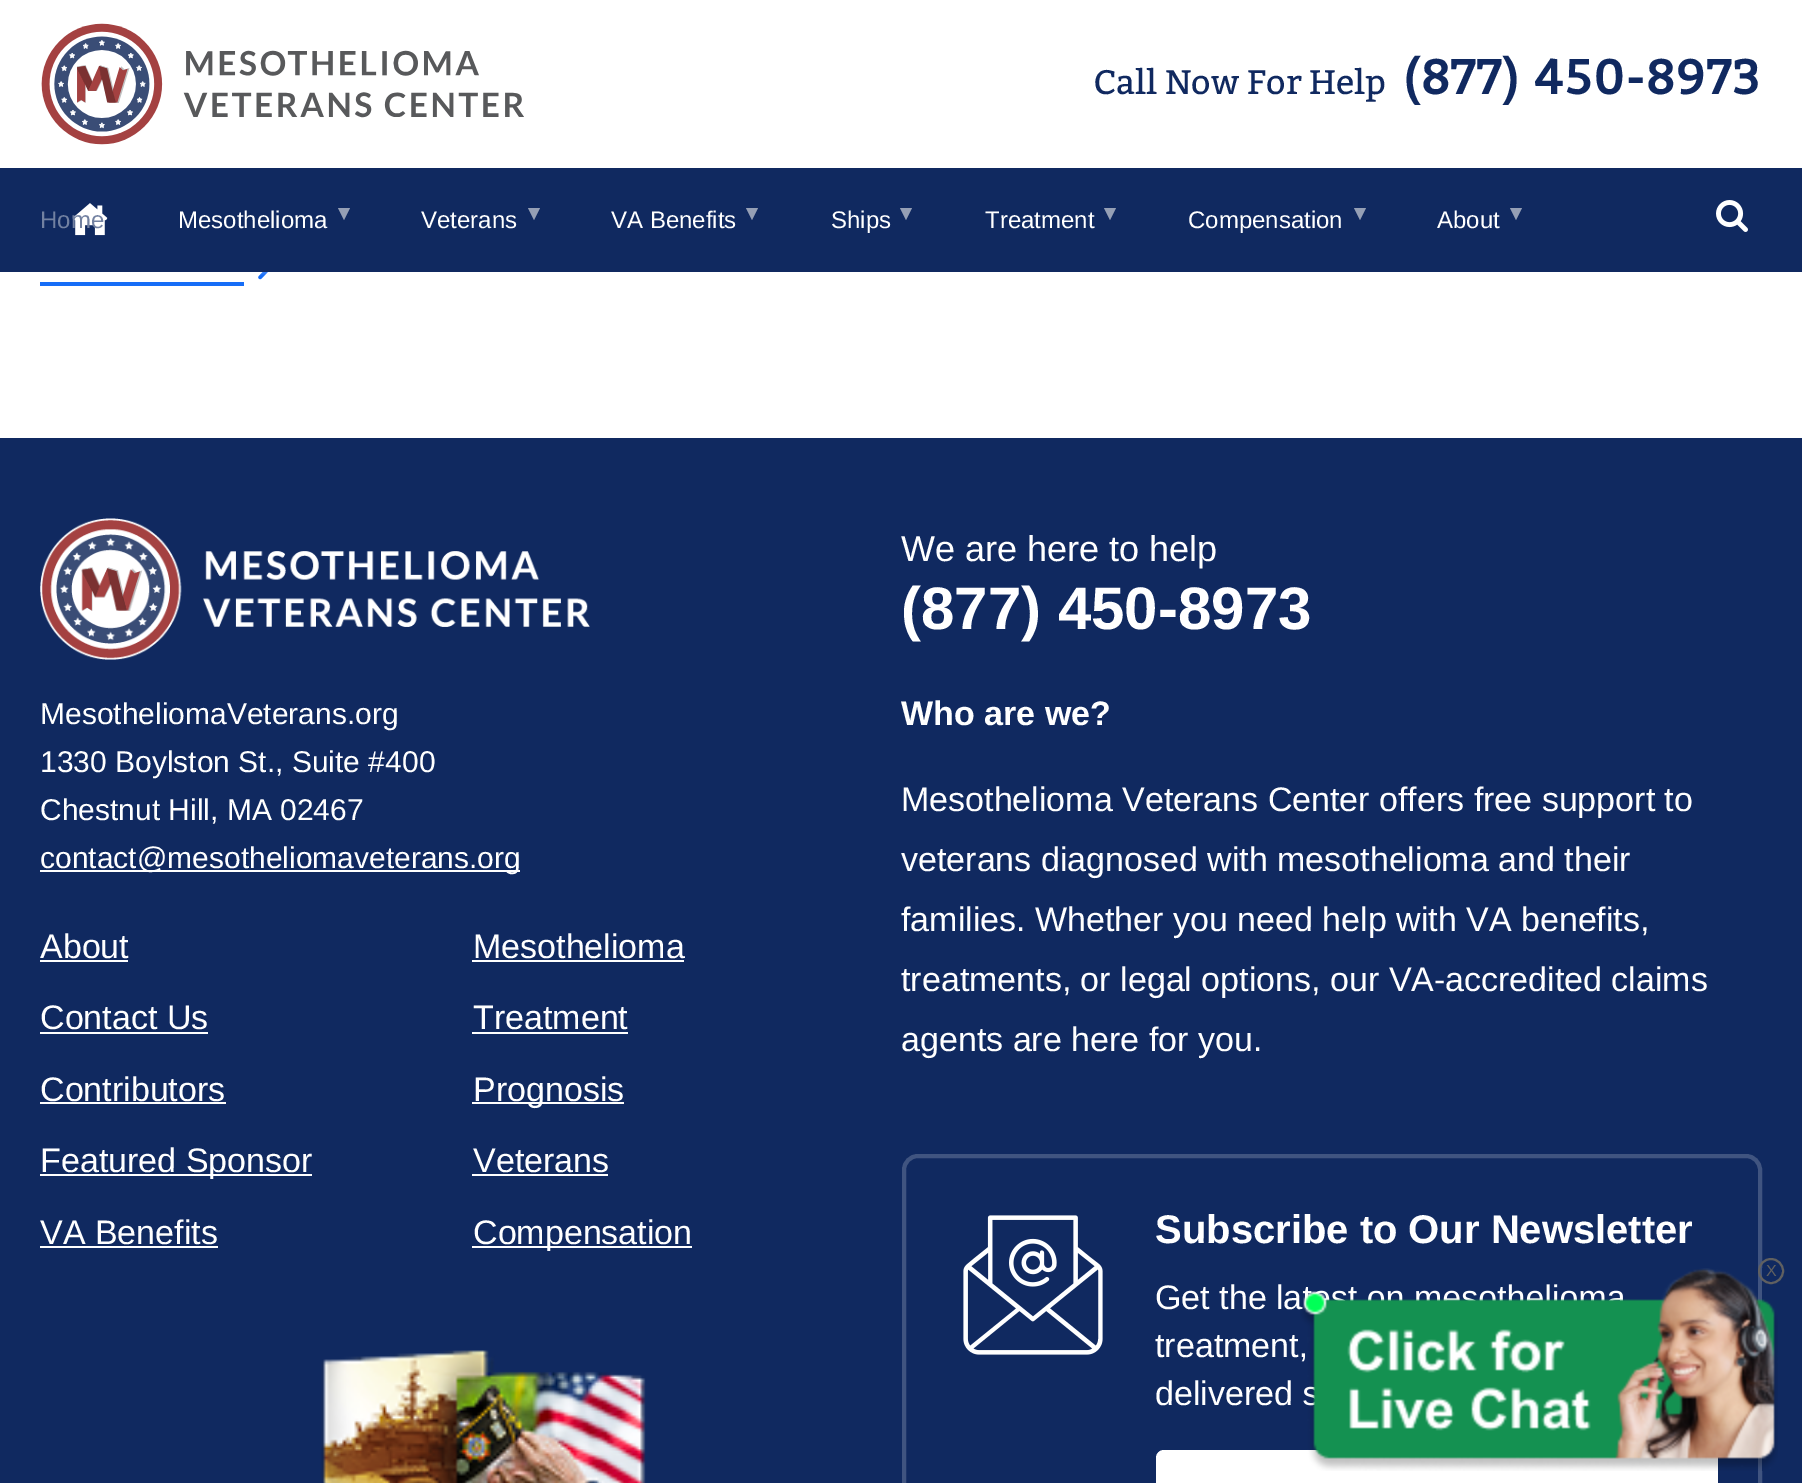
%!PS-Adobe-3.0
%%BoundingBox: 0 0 1802 1483
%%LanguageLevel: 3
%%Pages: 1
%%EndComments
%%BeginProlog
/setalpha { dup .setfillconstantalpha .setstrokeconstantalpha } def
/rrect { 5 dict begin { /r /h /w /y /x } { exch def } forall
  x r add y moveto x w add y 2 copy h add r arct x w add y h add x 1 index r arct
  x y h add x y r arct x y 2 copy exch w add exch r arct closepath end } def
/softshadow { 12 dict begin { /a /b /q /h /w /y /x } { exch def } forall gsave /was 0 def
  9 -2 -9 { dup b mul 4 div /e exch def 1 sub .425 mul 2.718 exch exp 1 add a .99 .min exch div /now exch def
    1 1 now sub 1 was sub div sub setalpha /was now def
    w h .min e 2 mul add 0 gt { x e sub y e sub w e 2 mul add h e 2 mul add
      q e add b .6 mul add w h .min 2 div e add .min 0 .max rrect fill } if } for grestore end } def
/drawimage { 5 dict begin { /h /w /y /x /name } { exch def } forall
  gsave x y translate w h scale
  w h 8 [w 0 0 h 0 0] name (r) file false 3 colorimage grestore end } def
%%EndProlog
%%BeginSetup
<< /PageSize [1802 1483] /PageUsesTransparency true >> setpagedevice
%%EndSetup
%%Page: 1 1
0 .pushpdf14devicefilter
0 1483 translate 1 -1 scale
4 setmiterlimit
1 setgray
0 0 1802 1483 rectfill
(images/4.raw) 258 272 10 8 drawimage
0 2 1802 272 0 1 0.15 softshadow
(images/1.raw) 41 23 483 122 drawimage
0.063 0.161 0.376 setrgbcolor
0 168 1802 104 rectfill
(images/2.raw) 72 203 36 33 drawimage
0.584 0.624 0.71 setrgbcolor
newpath 338 208 moveto 350 208 lineto 344 220 lineto closepath fill
newpath 528 208 moveto 540 208 lineto 534 220 lineto closepath fill
newpath 746 208 moveto 758 208 lineto 752 220 lineto closepath fill
newpath 900 208 moveto 912 208 lineto 906 220 lineto closepath fill
newpath 1104 208 moveto 1116 208 lineto 1110 220 lineto closepath fill
newpath 1354 208 moveto 1366 208 lineto 1360 220 lineto closepath fill
newpath 1510 208 moveto 1522 208 lineto 1516 220 lineto closepath fill
(images/3.raw) 1716 200 32 32 drawimage
0.086 0.427 0.969 setrgbcolor
40 282 204 4 rectfill
0.063 0.161 0.376 setrgbcolor
0 438 1802 1045 rectfill
(images/5.raw) 40 518 550 142 drawimage
1 setgray
40 870 480 2 rectfill
40 960 88 2 rectfill
472 960 212 2 rectfill
40 1032 168 2 rectfill
472 1032 156 2 rectfill
40 1102 186 2 rectfill
472 1102 152 2 rectfill
40 1174 272 2 rectfill
472 1174 136 2 rectfill
40 1246 178 2 rectfill
472 1246 220 2 rectfill
(images/6.raw) 321 1350 325 133 drawimage
0.251 0.329 0.502 setrgbcolor
4 setlinewidth
904 1156 856 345 14 rrect stroke
(images/7.raw) 963 1215 140 140 drawimage
1 setgray
1156 1450 562 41 8 rrect fill
/Bitter-Regular [34 0 0 -34 0 0] selectfont
0.063 0.161 0.376 setrgbcolor
1094 94 moveto (Call Now For Help) show
/Bitter-Bold [48 0 0 -48 0 0] selectfont
1403 94 moveto 2 0 (\(877\) 450-8973) ashow
/LiberationSans-Regular [24 0 0 -24 0 0] selectfont
0.447 0.506 0.631 setrgbcolor
40 228 moveto (Home) show
1 setgray
178 228 moveto (Mesothelioma) show
421 228 moveto (Veterans) show
611 228 moveto (VA Benefits) show
831 228 moveto (Ships) show
985 228 moveto (Treatment) show
1188 228 moveto (Compensation) show
1437 228 moveto (About) show
/LiberationSans-Regular [30 0 0 -30 0 0] selectfont
40 724 moveto (MesotheliomaVeterans.org) show
40 772 moveto (1330 Boylston St., Suite #400) show
40 820 moveto (Chestnut Hill, MA 02467) show
40 868 moveto (contact@mesotheliomaveterans.org) show
/LiberationSans-Regular [34 0 0 -34 0 0] selectfont
40 958 moveto (About) show
473 958 moveto (Mesothelioma) show
40 1029 moveto (Contact Us) show
473 1029 moveto (Treatment) show
40 1101 moveto (Contributors) show
473 1101 moveto (Prognosis) show
40 1172 moveto (Featured Sponsor) show
473 1172 moveto (Veterans) show
40 1244 moveto (VA Benefits) show
473 1244 moveto (Compensation) show
/LiberationSans-Regular [36 0 0 -36 0 0] selectfont
901 561 moveto (We are here to help) show
/LiberationSans-Bold [60 0 0 -60 0 0] selectfont
901 629 moveto (\(877\) 450-8973) show
/LiberationSans-Bold [34 0 0 -34 0 0] selectfont
901 725 moveto (Who are we?) show
/LiberationSans-Regular [34 0 0 -34 0 0] selectfont
901 811 moveto (Mesothelioma Veterans Center offers free support to) show
901 871 moveto (veterans diagnosed with mesothelioma and their) show
901 931 moveto (families. Whether you need help with VA benefits,) show
901 991 moveto (treatments, or legal options, our VA-accredited claims) show
901 1051 moveto (agents are here for you.) show
/LiberationSans-Bold [40 0 0 -40 0 0] selectfont
1155 1243 moveto (Subscribe to Our Newsletter) show
/LiberationSans-Regular [34 0 0 -34 0 0] selectfont
1155 1309 moveto (Get the la) show
1155 1357 moveto (treatment,) show
1155 1405 moveto (delivered s) show
(images/8.raw) 1300 1268 478 203 drawimage
0.376 setgray
2 setlinewidth
newpath 1771 1271 12 0 360 arc closepath stroke
/LiberationSans-Regular [16 0 0 -16 0 0] selectfont
1766 1276 moveto (X) show
.poppdf14devicefilter showpage
%%EOF
